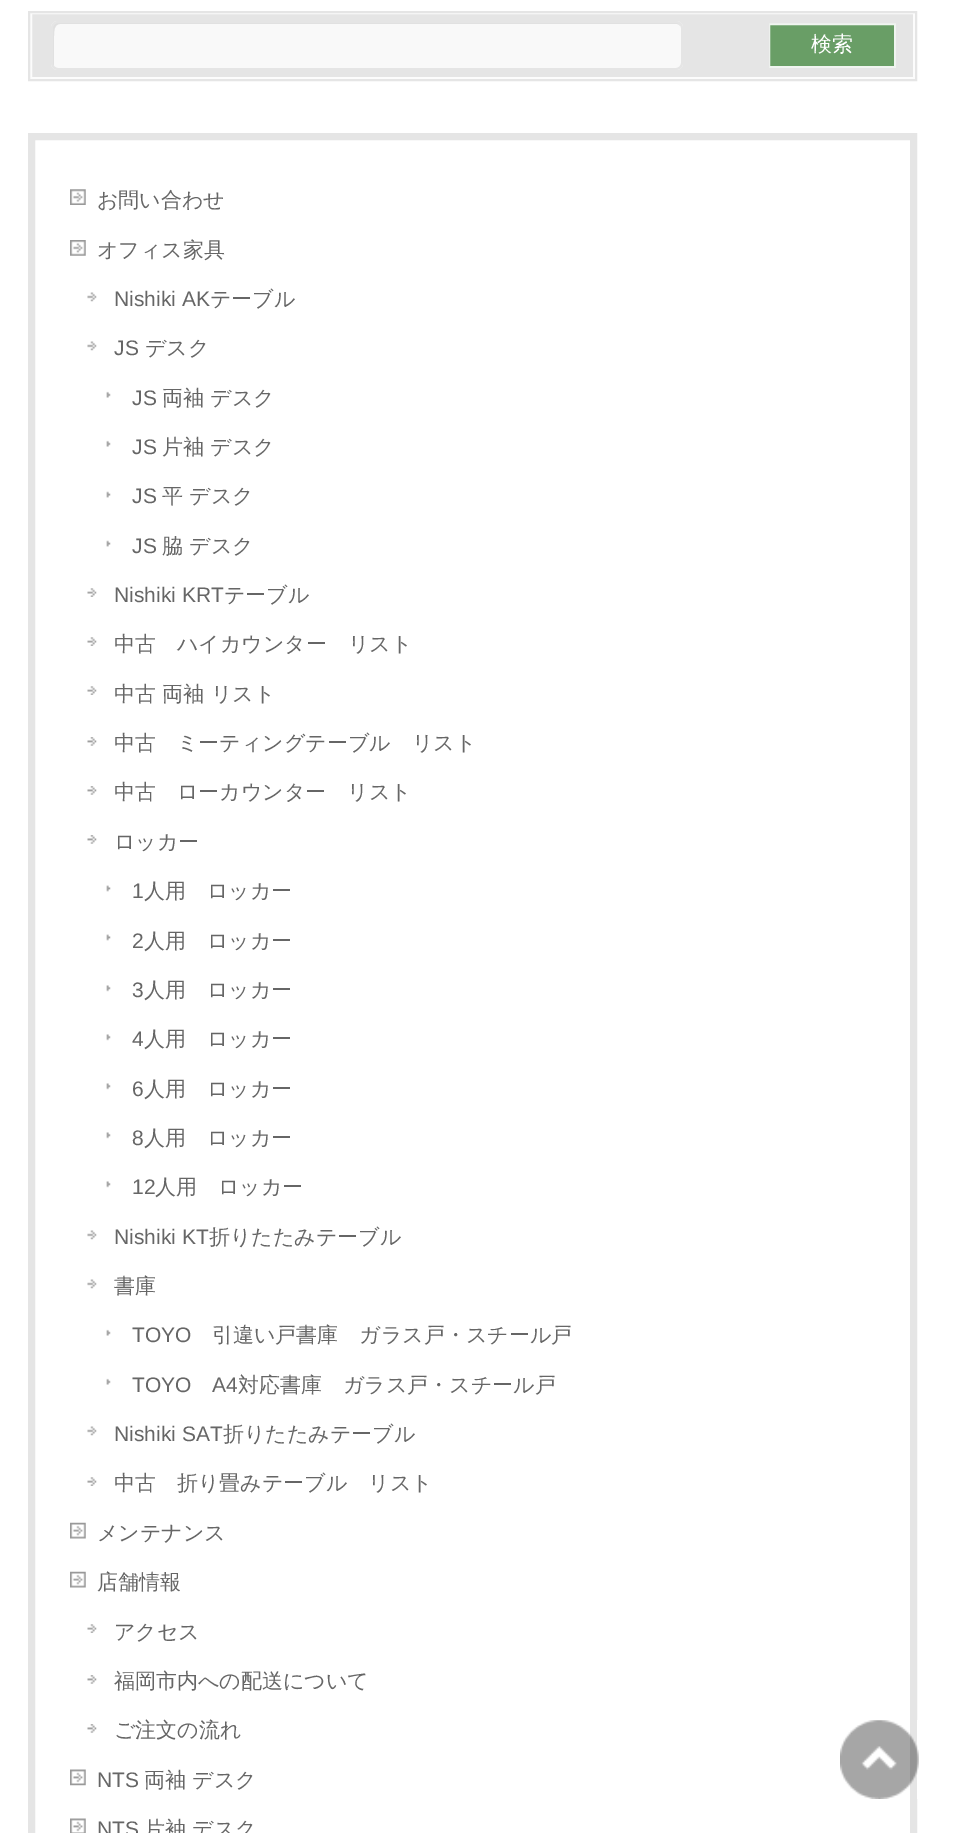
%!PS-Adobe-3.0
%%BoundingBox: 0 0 953 1833
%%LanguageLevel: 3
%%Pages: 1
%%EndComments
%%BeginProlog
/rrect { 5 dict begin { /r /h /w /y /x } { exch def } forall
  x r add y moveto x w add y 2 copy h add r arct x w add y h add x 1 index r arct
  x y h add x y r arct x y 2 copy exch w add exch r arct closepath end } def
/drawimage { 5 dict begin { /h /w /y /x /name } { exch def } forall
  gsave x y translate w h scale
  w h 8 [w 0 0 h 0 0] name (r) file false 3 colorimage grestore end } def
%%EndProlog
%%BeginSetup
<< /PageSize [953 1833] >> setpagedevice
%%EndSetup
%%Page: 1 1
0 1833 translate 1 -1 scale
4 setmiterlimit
1 setgray
0 0 953 1833 rectfill
0.898 setgray
newpath 31 13 moveto 914 13 lineto 914 78 lineto 31 78 lineto closepath gsave fill grestore
0.988 setgray
2 setlinewidth
stroke
0.898 setgray
29 12 887 68 rectstroke
0.976 setgray
51 21 632 49 7 rrect fill
0.878 setgray
newpath 60 24 moveto 677 24 lineto 678 24 680 25 680 26 curveto 680 24 678 23 676 23 curveto 58 23 lineto 55 23 53 25 53 28 curveto 53 63 lineto 53 64 53 65 54 66 curveto 54 36 lineto 54 32 54 24 60 24 curveto closepath fill
0.898 setgray
52 22 630 47 6 rrect stroke
0.412 0.62 0.4 setrgbcolor
newpath 769 24 moveto 895 24 lineto 895 67 lineto 769 67 lineto closepath gsave fill grestore
0.941 0.961 0.941 setrgbcolor
stroke
0.898 setgray
768 22 129 47 rectstroke
7 setlinewidth
31.5 136.5 882 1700 rectstroke
(images/1.raw) 70 189 16 16 drawimage
(images/2.raw) 70 240 16 16 drawimage
(images/3.raw) 87 292 10 10 drawimage
(images/3.raw) 87 341 10 10 drawimage
(images/4.raw) 106 391 5 7 drawimage
(images/4.raw) 106 440 5 7 drawimage
(images/5.raw) 106 491 5 7 drawimage
(images/5.raw) 106 540 5 7 drawimage
(images/6.raw) 87 588 10 9 drawimage
(images/6.raw) 87 637 10 9 drawimage
(images/6.raw) 87 686 10 9 drawimage
(images/7.raw) 87 737 10 9 drawimage
(images/7.raw) 87 786 10 9 drawimage
(images/7.raw) 87 835 10 9 drawimage
(images/8.raw) 106 885 5 7 drawimage
(images/8.raw) 106 934 5 7 drawimage
(images/9.raw) 106 985 5 7 drawimage
(images/9.raw) 106 1034 5 7 drawimage
(images/9.raw) 106 1083 5 7 drawimage
(images/9.raw) 106 1132 5 7 drawimage
(images/9.raw) 106 1181 5 7 drawimage
(images/3.raw) 87 1230 10 10 drawimage
(images/3.raw) 87 1279 10 10 drawimage
(images/4.raw) 106 1329 5 7 drawimage
(images/4.raw) 106 1378 5 7 drawimage
(images/3.raw) 87 1426 10 10 drawimage
(images/10.raw) 87 1477 10 9 drawimage
(images/11.raw) 70 1522 16 17 drawimage
(images/11.raw) 70 1571 16 17 drawimage
(images/6.raw) 87 1624 10 9 drawimage
(images/7.raw) 87 1675 10 9 drawimage
(images/7.raw) 87 1724 10 9 drawimage
(images/12.raw) 70 1769 16 17 drawimage
(images/13.raw) 70 1818 16 15 drawimage
(images/14.raw) 840 1720 79 79 drawimage
/WenQuanYiZenHei-Medium [21 0 0 -21 0 0] selectfont
1 setgray
811 51 moveto (検索) show
0.4 setgray
97 207 moveto (お問い合わせ) show
97 257 moveto (オフィス家具) show
/LiberationSans-Regular [21 0 0 -21 0 0] selectfont
114 306 moveto (Nishiki AK) show
/WenQuanYiZenHei-Medium [21 0 0 -21 0 0] selectfont
210 306 moveto (テーブル) show
/LiberationSans-Regular [21 0 0 -21 0 0] selectfont
114 355 moveto (JS) show
/WenQuanYiZenHei-Medium [21 0 0 -21 0 0] selectfont
145 355 moveto (デスク) show
/LiberationSans-Regular [21 0 0 -21 0 0] selectfont
132 405 moveto (JS) show
/WenQuanYiZenHei-Medium [21 0 0 -21 0 0] selectfont
162 405 moveto (両袖 デスク) show
/LiberationSans-Regular [21 0 0 -21 0 0] selectfont
132 454 moveto (JS) show
/WenQuanYiZenHei-Medium [21 0 0 -21 0 0] selectfont
162 454 moveto (片袖 デスク) show
/LiberationSans-Regular [21 0 0 -21 0 0] selectfont
132 503 moveto (JS) show
/WenQuanYiZenHei-Medium [21 0 0 -21 0 0] selectfont
162 503 moveto (平 デスク) show
/LiberationSans-Regular [21 0 0 -21 0 0] selectfont
132 553 moveto (JS) show
/WenQuanYiZenHei-Medium [21 0 0 -21 0 0] selectfont
162 553 moveto (脇 デスク) show
/LiberationSans-Regular [21 0 0 -21 0 0] selectfont
114 602 moveto (Nishiki KRT) show
/WenQuanYiZenHei-Medium [21 0 0 -21 0 0] selectfont
224 602 moveto (テーブル) show
114 651 moveto (中古　ハイカウンター　リスト) show
114 701 moveto (中古 両袖 リスト) show
114 750 moveto (中古　ミーティングテーブル　リスト) show
114 799 moveto (中古　ローカウンター　リスト) show
114 849 moveto (ロッカー) show
/LiberationSans-Regular [21 0 0 -21 0 0] selectfont
132 898 moveto (1) show
/WenQuanYiZenHei-Medium [21 0 0 -21 0 0] selectfont
144 898 moveto (人用　ロッカー) show
/LiberationSans-Regular [21 0 0 -21 0 0] selectfont
132 948 moveto (2) show
/WenQuanYiZenHei-Medium [21 0 0 -21 0 0] selectfont
144 948 moveto (人用　ロッカー) show
/LiberationSans-Regular [21 0 0 -21 0 0] selectfont
132 997 moveto (3) show
/WenQuanYiZenHei-Medium [21 0 0 -21 0 0] selectfont
144 997 moveto (人用　ロッカー) show
/LiberationSans-Regular [21 0 0 -21 0 0] selectfont
132 1046 moveto (4) show
/WenQuanYiZenHei-Medium [21 0 0 -21 0 0] selectfont
144 1046 moveto (人用　ロッカー) show
/LiberationSans-Regular [21 0 0 -21 0 0] selectfont
132 1096 moveto (6) show
/WenQuanYiZenHei-Medium [21 0 0 -21 0 0] selectfont
144 1096 moveto (人用　ロッカー) show
/LiberationSans-Regular [21 0 0 -21 0 0] selectfont
132 1145 moveto (8) show
/WenQuanYiZenHei-Medium [21 0 0 -21 0 0] selectfont
144 1145 moveto (人用　ロッカー) show
/LiberationSans-Regular [21 0 0 -21 0 0] selectfont
132 1194 moveto (12) show
/WenQuanYiZenHei-Medium [21 0 0 -21 0 0] selectfont
155 1194 moveto (人用　ロッカー) show
/LiberationSans-Regular [21 0 0 -21 0 0] selectfont
114 1244 moveto (Nishiki KT) show
/WenQuanYiZenHei-Medium [21 0 0 -21 0 0] selectfont
209 1244 moveto (折りたたみテーブル) show
114 1293 moveto (書庫) show
/LiberationSans-Regular [21 0 0 -21 0 0] selectfont
132 1342 moveto (TOYO) show
/WenQuanYiZenHei-Medium [21 0 0 -21 0 0] selectfont
212 1342 moveto (引違い戸書庫　ガラス戸・スチール戸) show
/LiberationSans-Regular [21 0 0 -21 0 0] selectfont
132 1392 moveto (TOYO) show
212 1392 moveto (A4) show
/WenQuanYiZenHei-Medium [21 0 0 -21 0 0] selectfont
238 1392 moveto (対応書庫　ガラス戸・スチール戸) show
/LiberationSans-Regular [21 0 0 -21 0 0] selectfont
114 1441 moveto (Nishiki SAT) show
/WenQuanYiZenHei-Medium [21 0 0 -21 0 0] selectfont
223 1441 moveto (折りたたみテーブル) show
114 1490 moveto (中古　折り畳みテーブル　リスト) show
97 1540 moveto (メンテナンス) show
97 1589 moveto (店舗情報) show
114 1639 moveto (アクセス) show
114 1688 moveto (福岡市内への配送について) show
114 1737 moveto (ご注文の流れ) show
/LiberationSans-Regular [21 0 0 -21 0 0] selectfont
97 1787 moveto (NTS) show
/WenQuanYiZenHei-Medium [21 0 0 -21 0 0] selectfont
144 1787 moveto (両袖 デスク) show
/LiberationSans-Regular [21 0 0 -21 0 0] selectfont
97 1836 moveto (NTS) show
/WenQuanYiZenHei-Medium [21 0 0 -21 0 0] selectfont
144 1836 moveto (片袖 デスク) show
showpage
%%EOF
